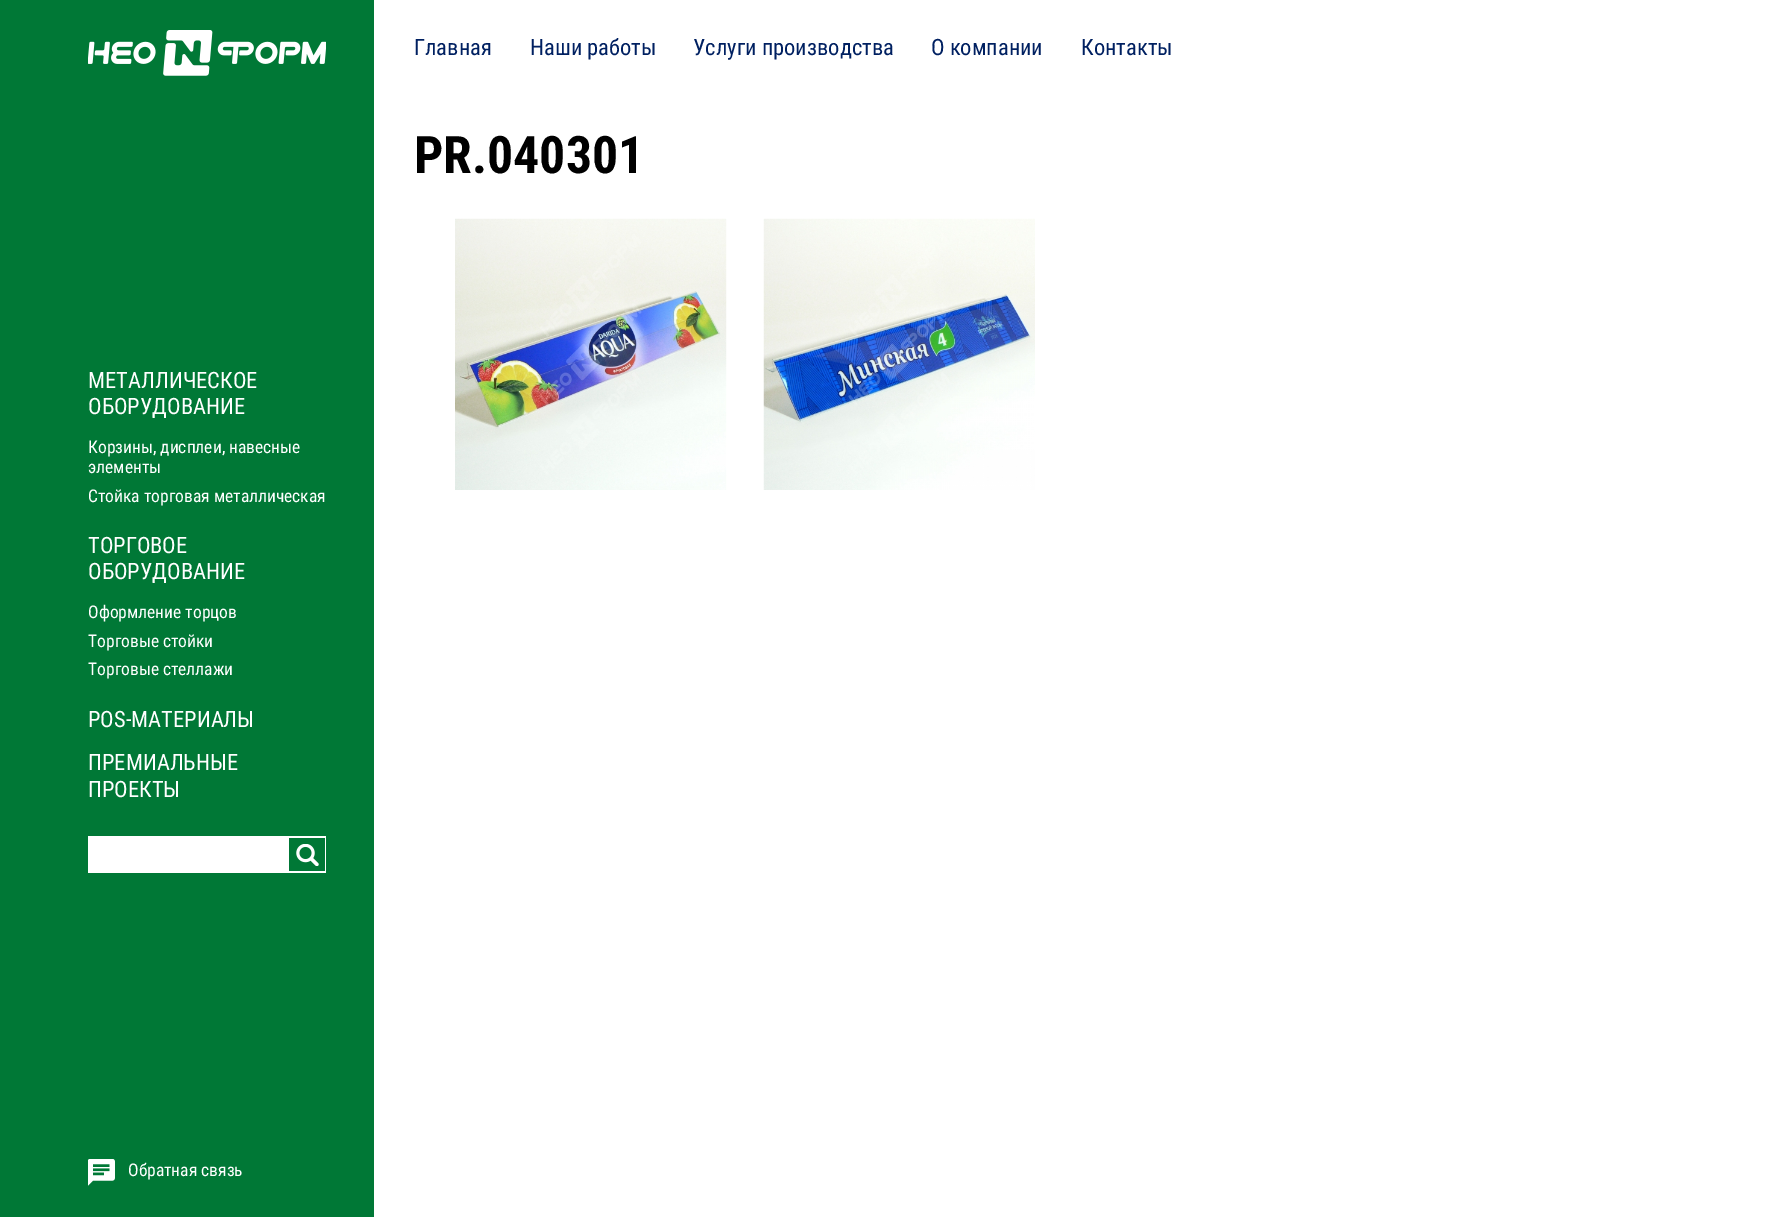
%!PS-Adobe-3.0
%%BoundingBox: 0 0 1778 1217
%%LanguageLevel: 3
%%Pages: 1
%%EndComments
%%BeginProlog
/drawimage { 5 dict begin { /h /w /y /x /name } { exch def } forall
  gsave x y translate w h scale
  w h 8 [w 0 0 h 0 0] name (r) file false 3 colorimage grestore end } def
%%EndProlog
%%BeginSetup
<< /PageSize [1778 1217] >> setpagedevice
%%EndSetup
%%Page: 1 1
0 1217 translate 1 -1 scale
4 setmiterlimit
1 setgray
0 0 1778 1217 rectfill
(images/1.raw) 455 218 272 272 drawimage
(images/2.raw) 763 218 272 272 drawimage
0 0.471 0.212 setrgbcolor
0 0 374 1217 rectfill
(images/3.raw) 88 30 238 46 drawimage
1 setgray
88 836 238 37 rectfill
0 0.471 0.212 setrgbcolor
289 838 36 33 rectfill
(images/4.raw) 296 844 23 22 drawimage
(images/5.raw) 88 1159 27 27 drawimage
/RobotoCondensed-Regular [22.5 0 0 -22.5 0 0] selectfont
0 0.125 0.38 setrgbcolor
414 55 moveto (Главная) show
530 55 moveto (Наши работы) show
693 55 moveto (Услуги производства) show
931 55 moveto (О компании) show
1081 55 moveto (Контакты) show
/RobotoCondensed-Bold [51.75 0 0 -51.75 0 0] selectfont
0 setgray
414 173 moveto (PR.040301) show
/RobotoCondensed-Regular [22.5 0 0 -22.5 0 0] selectfont
1 setgray
88 388 moveto (МЕТАЛЛИЧЕСКОЕ) show
88 414 moveto (ОБОРУДОВАНИЕ) show
/RobotoCondensed-Regular [17.5 0 0 -17.5 0 0] selectfont
88 453 moveto (Корзины, дисплеи, навесные) show
88 473 moveto (элементы) show
88 502 moveto (Стойка торговая металлическая) show
/RobotoCondensed-Regular [22.5 0 0 -22.5 0 0] selectfont
88 553 moveto (ТОРГОВОЕ) show
88 579 moveto (ОБОРУДОВАНИЕ) show
/RobotoCondensed-Regular [17.5 0 0 -17.5 0 0] selectfont
88 618 moveto (Оформление торцов) show
88 647 moveto (Торговые стойки) show
88 675 moveto (Торговые стеллажи) show
/RobotoCondensed-Regular [22.5 0 0 -22.5 0 0] selectfont
88 727 moveto (POS-МАТЕРИАЛЫ) show
88 770 moveto (ПРЕМИАЛЬНЫЕ) show
88 797 moveto (ПРОЕКТЫ) show
/RobotoCondensed-Regular [17.5 0 0 -17.5 0 0] selectfont
128 1176 moveto (Обратная связь) show
showpage
%%EOF
